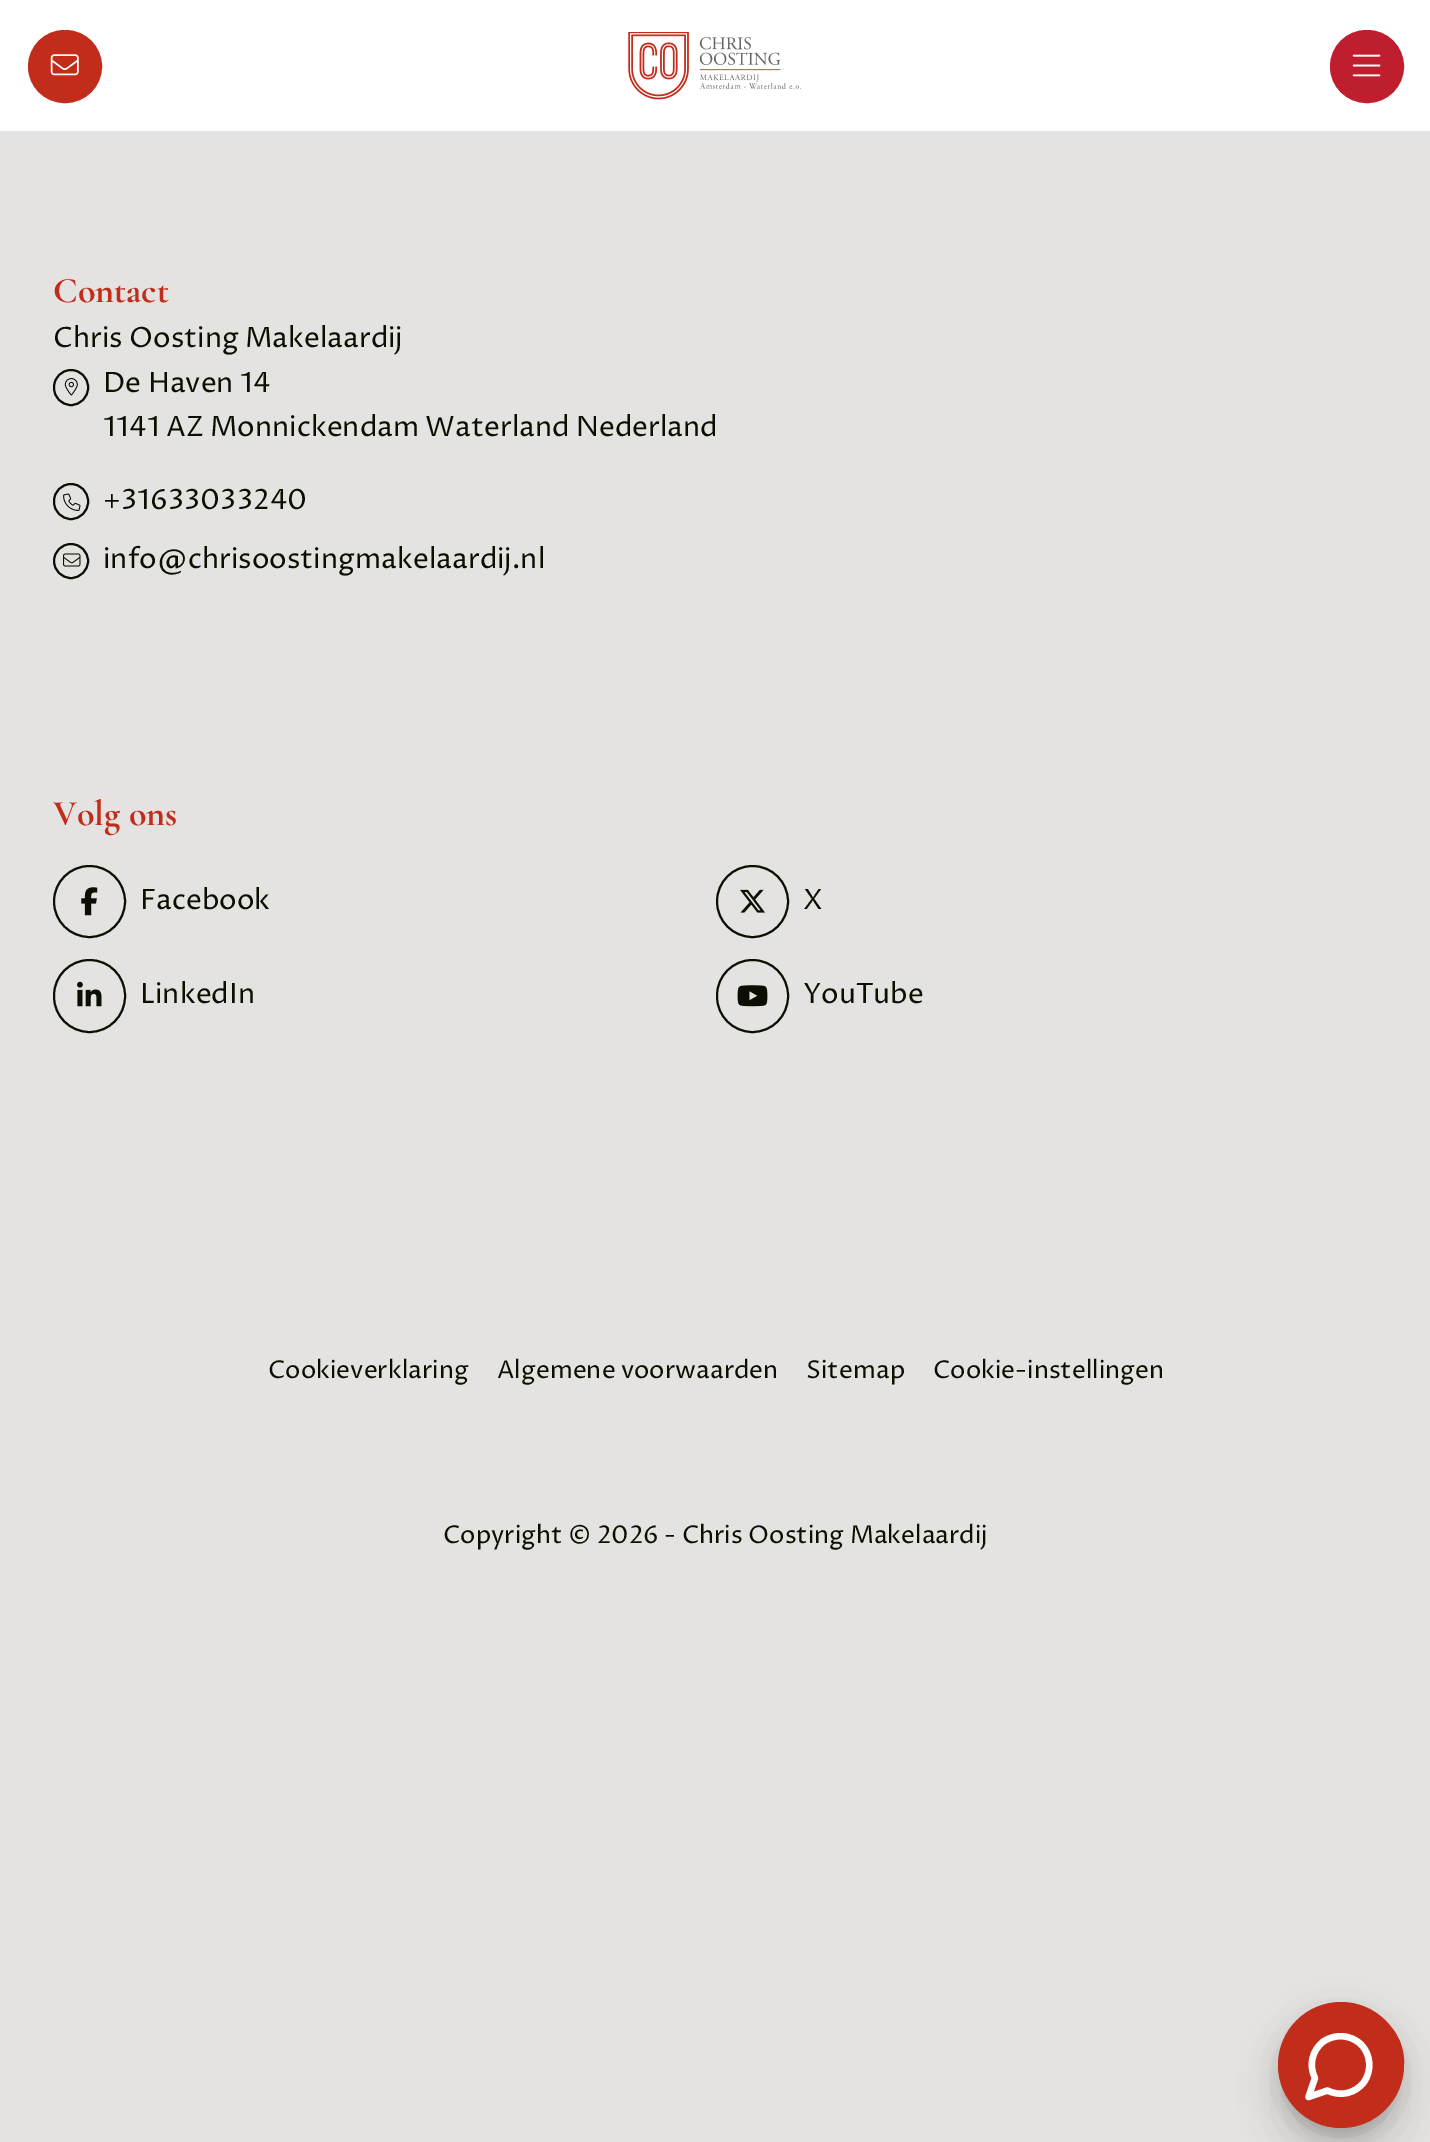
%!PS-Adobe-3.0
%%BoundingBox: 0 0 1430 2142
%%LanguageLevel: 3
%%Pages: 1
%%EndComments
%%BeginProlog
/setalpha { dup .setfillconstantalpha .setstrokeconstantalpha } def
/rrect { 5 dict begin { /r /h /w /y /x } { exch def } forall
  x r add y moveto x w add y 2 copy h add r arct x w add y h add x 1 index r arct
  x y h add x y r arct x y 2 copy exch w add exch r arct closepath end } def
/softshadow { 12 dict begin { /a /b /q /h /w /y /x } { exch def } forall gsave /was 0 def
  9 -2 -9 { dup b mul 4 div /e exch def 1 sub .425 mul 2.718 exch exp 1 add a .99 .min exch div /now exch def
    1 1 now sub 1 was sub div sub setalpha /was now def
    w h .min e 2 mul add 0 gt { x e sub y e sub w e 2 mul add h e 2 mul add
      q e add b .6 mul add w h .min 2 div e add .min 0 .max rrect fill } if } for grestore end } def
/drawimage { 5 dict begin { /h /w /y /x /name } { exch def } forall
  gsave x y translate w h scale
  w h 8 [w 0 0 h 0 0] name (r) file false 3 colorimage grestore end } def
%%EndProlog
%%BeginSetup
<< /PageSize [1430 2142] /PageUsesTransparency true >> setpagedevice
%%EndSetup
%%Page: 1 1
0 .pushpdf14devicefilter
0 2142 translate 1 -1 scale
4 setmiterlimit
0.898 0.89 0.882 setrgbcolor
0 0 1430 2142 rectfill
1 setgray
0 0 1430 131 rectfill
0.757 0.173 0.106 setrgbcolor
29 31 72 71 35.5 rrect gsave fill grestore
2 setlinewidth
stroke
(images/1.raw) 50 54 29 22 drawimage
(images/2.raw) 628 32 174 68 drawimage
0.745 0.118 0.176 setrgbcolor
1331 31 72 71 35.5 rrect gsave fill grestore
stroke
(images/3.raw) 1352 54 29 23 drawimage
0.039 0.059 0.008 setrgbcolor
54 370 34 35 17 rrect stroke
(images/4.raw) 64 378 14 18 drawimage
54 484 34 35 17 rrect stroke
(images/5.raw) 63 493 18 18 drawimage
newpath 71 561 17 0 360 arc closepath stroke
(images/6.raw) 63 553 18 14 drawimage
newpath 89.5 901.5 35.5 0 360 arc closepath stroke
(images/7.raw) 81 887 17 29 drawimage
newpath 752.5 901.5 35.5 0 360 arc closepath stroke
(images/8.raw) 740 889 25 24 drawimage
54 960 71 72 35.5 rrect stroke
(images/9.raw) 77 981 25 26 drawimage
717 960 71 72 35.5 rrect stroke
(images/10.raw) 737 985 31 22 drawimage
0.757 0.173 0.106 setrgbcolor
newpath 1351.5 2061.5 51.5 0 360 arc closepath stroke
0 setgray
1288 2027 105 105 52.5 9 0.1 softshadow
1286 2046 109 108 54 22 0.1 softshadow
1283 2014 115 116 57.5 9 0.1 softshadow
1286 2025 109 108 54 22 0.15 softshadow
0.757 0.173 0.106 setrgbcolor
newpath 1341 2065 63 0 360 arc closepath fill
1 setgray
6.4 setlinewidth
1 setlinecap
1 setlinejoin
newpath 1327.5 2090.5 moveto 1340 2097 1355.5 2093.5 1364 2082 curveto 1372 2070.5 1371 2054.5 1361 2044.5 curveto 1351 2034.5 1335 2033.5 1323.5 2041.5 curveto 1312 2050 1308.5 2065.5 1315 2078 curveto 1308.5 2097 lineto closepath stroke
/CormorantGaramond-Bold [36 0 0 -36 0 0] selectfont
0.757 0.173 0.106 setrgbcolor
53 302 moveto (Contact) show
/ProzaLibre-Regular [28 0 0 -28 0 0] selectfont
0.039 0.059 0.008 setrgbcolor
53 347 moveto (Chris Oosting Makelaardij) show
103 392 moveto (De Haven 14) show
103 436 moveto (1141 AZ Monnickendam Waterland Nederland) show
103 509 moveto (+31633033240) show
103 568 moveto (info@chrisoostingmakelaardij.nl) show
/CormorantGaramond-Bold [36 0 0 -36 0 0] selectfont
0.757 0.173 0.106 setrgbcolor
53 825 moveto (Volg ons) show
/ProzaLibre-Regular [28 0 0 -28 0 0] selectfont
0.039 0.059 0.008 setrgbcolor
140 909 moveto (Facebook) show
803 909 moveto (X) show
140 1003 moveto (LinkedIn) show
803 1003 moveto (YouTube) show
/ProzaLibre-Regular [24.5 0 0 -24.5 0 0] selectfont
268 1378 moveto (Cookieverklaring) show
497 1378 moveto (Algemene voorwaarden) show
806 1378 moveto (Sitemap) show
933 1378 moveto (Cookie-instellingen) show
443 1543 moveto (Copyright © 2026 - Chris Oosting Makelaardij) show
.poppdf14devicefilter showpage
%%EOF
